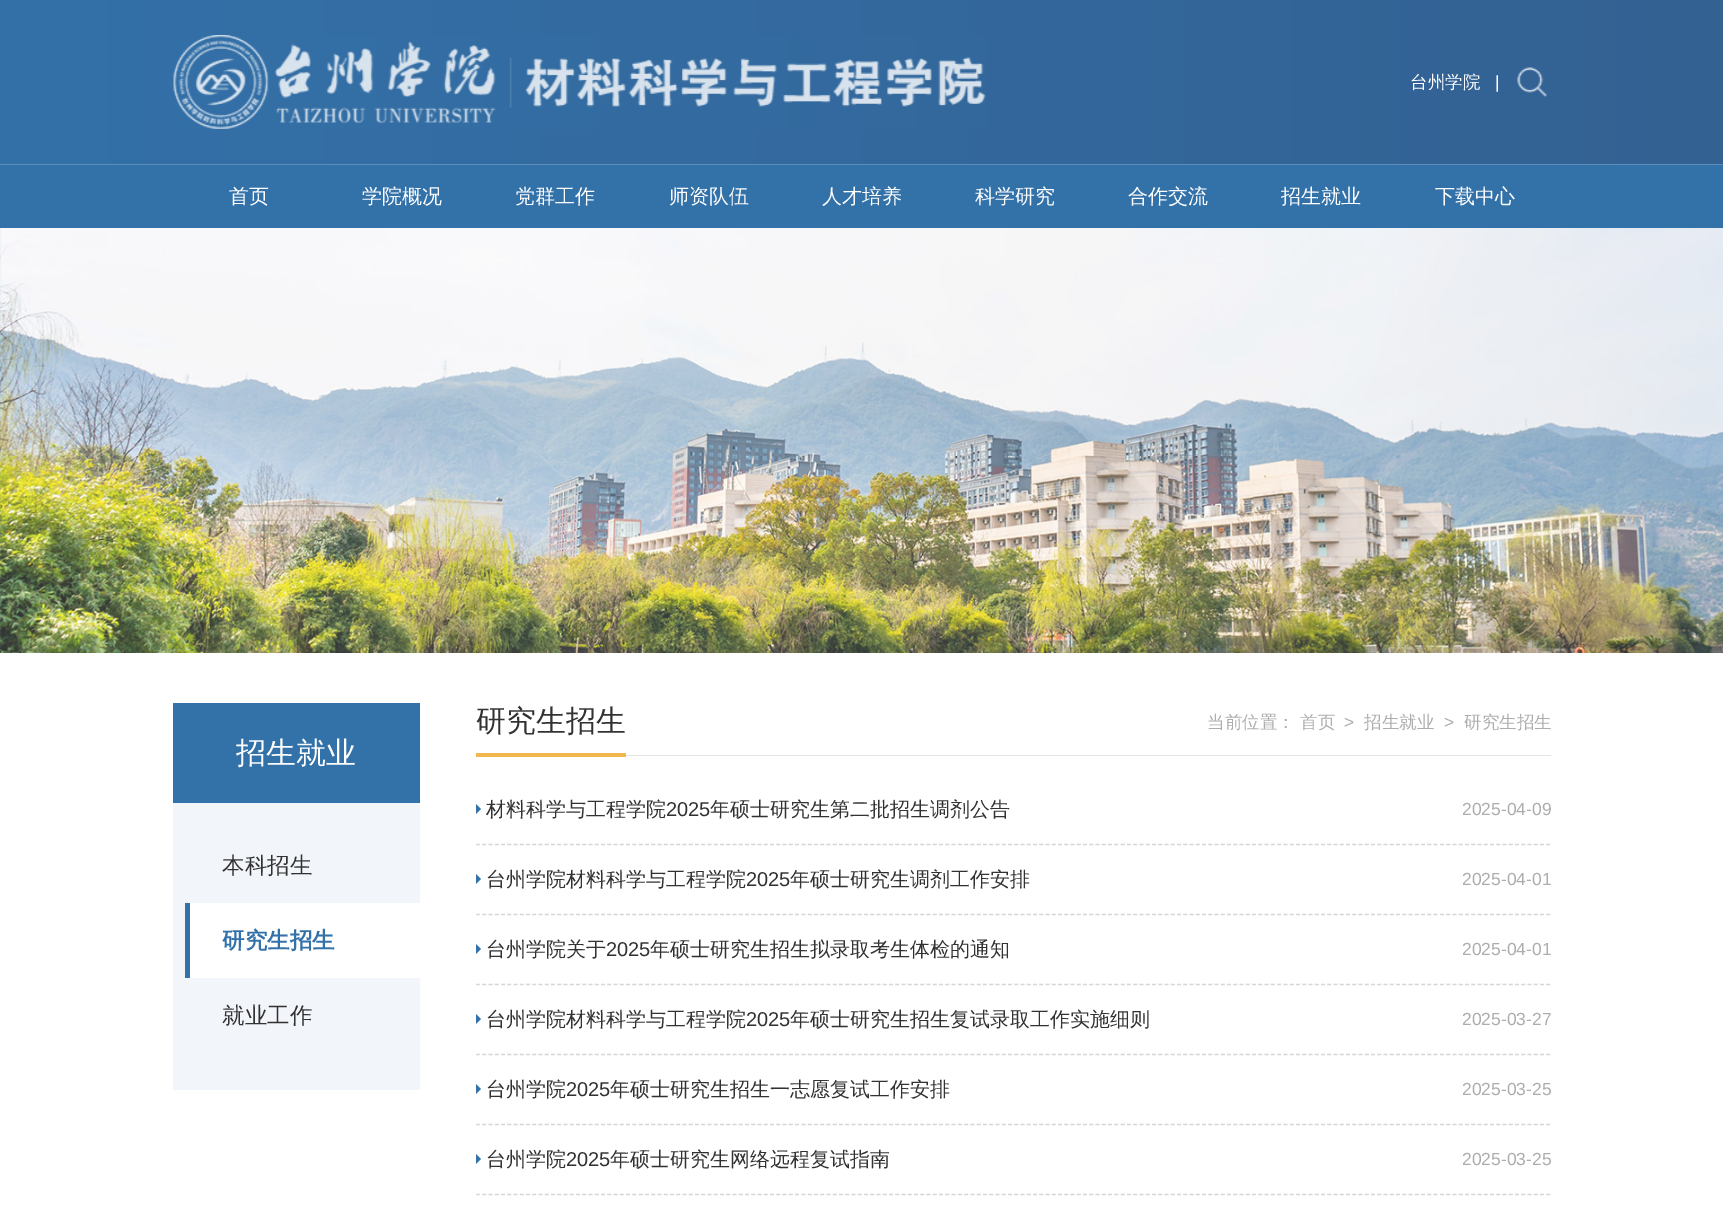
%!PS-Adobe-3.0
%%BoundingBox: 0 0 1723 1221
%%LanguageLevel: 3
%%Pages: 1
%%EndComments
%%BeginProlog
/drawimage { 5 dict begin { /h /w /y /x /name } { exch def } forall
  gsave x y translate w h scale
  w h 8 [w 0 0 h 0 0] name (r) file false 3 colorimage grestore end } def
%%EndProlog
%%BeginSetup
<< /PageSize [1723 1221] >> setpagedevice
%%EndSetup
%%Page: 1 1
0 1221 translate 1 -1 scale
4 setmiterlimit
1 setgray
0 0 1723 1221 rectfill
gsave newpath 0 0 moveto 1723 0 lineto 1723 164 lineto 0 164 lineto closepath clip newpath
<< /ShadingType 2 /ColorSpace /DeviceRGB /Coords [0 82 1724 82] /Extend [true true] /Function << /FunctionType 2 /Domain [0 1] /C0 [0.2 0.443 0.663] /C1 [0.2 0.38 0.573] /N 1 >> >> shfill grestore
(images/1.raw) 173 35 813 94 drawimage
(images/2.raw) 1517 67 30 30 drawimage
0.2 0.443 0.663 setrgbcolor
0 165 1723 63 rectfill
0.361 0.553 0.729 setrgbcolor
0 164 1723 1 rectfill
(images/3.raw) 0 228 1723 425 drawimage
0.2 0.443 0.663 setrgbcolor
173 703 247 100 rectfill
0.949 0.965 0.98 setrgbcolor
173 803 247 287 rectfill
1 setgray
190 903 230 75 rectfill
0.2 0.443 0.663 setrgbcolor
185 903 5 75 rectfill
0.894 setgray
626 755 925 1 rectfill
0.941 0.722 0.302 setrgbcolor
476 753 150 4 rectfill
0.839 setgray
1.2 setlinewidth
[3.75 2.51] 0 setdash
newpath 476 844.5 moveto 1551 844.5 lineto stroke
0.2 0.443 0.663 setrgbcolor
newpath 476 814 moveto 476 804 lineto 481 809 lineto closepath fill
0.839 setgray
newpath 476 914.5 moveto 1551 914.5 lineto stroke
0.2 0.443 0.663 setrgbcolor
newpath 476 884 moveto 476 874 lineto 481 879 lineto closepath fill
0.839 setgray
newpath 476 984.5 moveto 1551 984.5 lineto stroke
0.2 0.443 0.663 setrgbcolor
newpath 476 954 moveto 476 944 lineto 481 949 lineto closepath fill
0.839 setgray
newpath 476 1054.5 moveto 1551 1054.5 lineto stroke
0.2 0.443 0.663 setrgbcolor
newpath 476 1024 moveto 476 1014 lineto 481 1019 lineto closepath fill
0.839 setgray
newpath 476 1124.5 moveto 1551 1124.5 lineto stroke
0.2 0.443 0.663 setrgbcolor
newpath 476 1094 moveto 476 1084 lineto 481 1089 lineto closepath fill
0.839 setgray
newpath 476 1194.5 moveto 1551 1194.5 lineto stroke
0.2 0.443 0.663 setrgbcolor
newpath 476 1164 moveto 476 1154 lineto 481 1159 lineto closepath fill
/WenQuanYiZenHei-Medium [17.5 0 0 -17.5 0 0] selectfont
1 setgray
1410 88 moveto (台州学院) show
/LiberationSans-Regular [17.5 0 0 -17.5 0 0] selectfont
1495 88 moveto (|) show
/WenQuanYiZenHei-Medium [20 0 0 -20 0 0] selectfont
229 203 moveto (首页) show
362 203 moveto (学院概况) show
515 203 moveto (党群工作) show
669 203 moveto (师资队伍) show
822 203 moveto (人才培养) show
975 203 moveto (科学研究) show
1128 203 moveto (合作交流) show
1281 203 moveto (招生就业) show
1435 203 moveto (下载中心) show
/WenQuanYiZenHei-Medium [30 0 0 -30 0 0] selectfont
236 763 moveto (招生就业) show
/WenQuanYiZenHei-Medium [22.5 0 0 -22.5 0 0] selectfont
0.196 setgray
222 873 moveto (本科招生) show
/WenQuanYiZenHei-Bold [22.5 0 0 -22.5 0 0] selectfont
0.2 0.443 0.663 setrgbcolor
222 948 moveto (研究生招生) show
/WenQuanYiZenHei-Medium [22.5 0 0 -22.5 0 0] selectfont
0.196 setgray
222 1023 moveto (就业工作) show
/WenQuanYiZenHei-Medium [30 0 0 -30 0 0] selectfont
476 731 moveto (研究生招生) show
/WenQuanYiZenHei-Medium [17.5 0 0 -17.5 0 0] selectfont
0.678 setgray
1207 728 moveto (当前位置：) show
1300 728 moveto (首页) show
/LiberationSans-Regular [17.5 0 0 -17.5 0 0] selectfont
1344 728 moveto (>) show
/WenQuanYiZenHei-Medium [17.5 0 0 -17.5 0 0] selectfont
1364 728 moveto (招生就业) show
/LiberationSans-Regular [17.5 0 0 -17.5 0 0] selectfont
1444 728 moveto (>) show
/WenQuanYiZenHei-Medium [17.5 0 0 -17.5 0 0] selectfont
1464 728 moveto (研究生招生) show
/WenQuanYiZenHei-Medium [20 0 0 -20 0 0] selectfont
0.196 setgray
486 816 moveto (材料科学与工程学院) show
/LiberationSans-Regular [20 0 0 -20 0 0] selectfont
666 816 moveto (2025) show
/WenQuanYiZenHei-Medium [20 0 0 -20 0 0] selectfont
710 816 moveto (年硕士研究生第二批招生调剂公告) show
/LiberationSans-Regular [17.5 0 0 -17.5 0 0] selectfont
0.678 setgray
1462 815 moveto (2025-04-09) show
/WenQuanYiZenHei-Medium [20 0 0 -20 0 0] selectfont
0.196 setgray
486 886 moveto (台州学院材料科学与工程学院) show
/LiberationSans-Regular [20 0 0 -20 0 0] selectfont
746 886 moveto (2025) show
/WenQuanYiZenHei-Medium [20 0 0 -20 0 0] selectfont
790 886 moveto (年硕士研究生调剂工作安排) show
/LiberationSans-Regular [17.5 0 0 -17.5 0 0] selectfont
0.678 setgray
1462 885 moveto (2025-04-01) show
/WenQuanYiZenHei-Medium [20 0 0 -20 0 0] selectfont
0.196 setgray
486 956 moveto (台州学院关于) show
/LiberationSans-Regular [20 0 0 -20 0 0] selectfont
606 956 moveto (2025) show
/WenQuanYiZenHei-Medium [20 0 0 -20 0 0] selectfont
650 956 moveto (年硕士研究生招生拟录取考生体检的通知) show
/LiberationSans-Regular [17.5 0 0 -17.5 0 0] selectfont
0.678 setgray
1462 955 moveto (2025-04-01) show
/WenQuanYiZenHei-Medium [20 0 0 -20 0 0] selectfont
0.196 setgray
486 1026 moveto (台州学院材料科学与工程学院) show
/LiberationSans-Regular [20 0 0 -20 0 0] selectfont
746 1026 moveto (2025) show
/WenQuanYiZenHei-Medium [20 0 0 -20 0 0] selectfont
790 1026 moveto (年硕士研究生招生复试录取工作实施细则) show
/LiberationSans-Regular [17.5 0 0 -17.5 0 0] selectfont
0.678 setgray
1462 1025 moveto (2025-03-27) show
/WenQuanYiZenHei-Medium [20 0 0 -20 0 0] selectfont
0.196 setgray
486 1096 moveto (台州学院) show
/LiberationSans-Regular [20 0 0 -20 0 0] selectfont
566 1096 moveto (2025) show
/WenQuanYiZenHei-Medium [20 0 0 -20 0 0] selectfont
610 1096 moveto (年硕士研究生招生一志愿复试工作安排) show
/LiberationSans-Regular [17.5 0 0 -17.5 0 0] selectfont
0.678 setgray
1462 1095 moveto (2025-03-25) show
/WenQuanYiZenHei-Medium [20 0 0 -20 0 0] selectfont
0.196 setgray
486 1166 moveto (台州学院) show
/LiberationSans-Regular [20 0 0 -20 0 0] selectfont
566 1166 moveto (2025) show
/WenQuanYiZenHei-Medium [20 0 0 -20 0 0] selectfont
610 1166 moveto (年硕士研究生网络远程复试指南) show
/LiberationSans-Regular [17.5 0 0 -17.5 0 0] selectfont
0.678 setgray
1462 1165 moveto (2025-03-25) show
showpage
%%EOF
